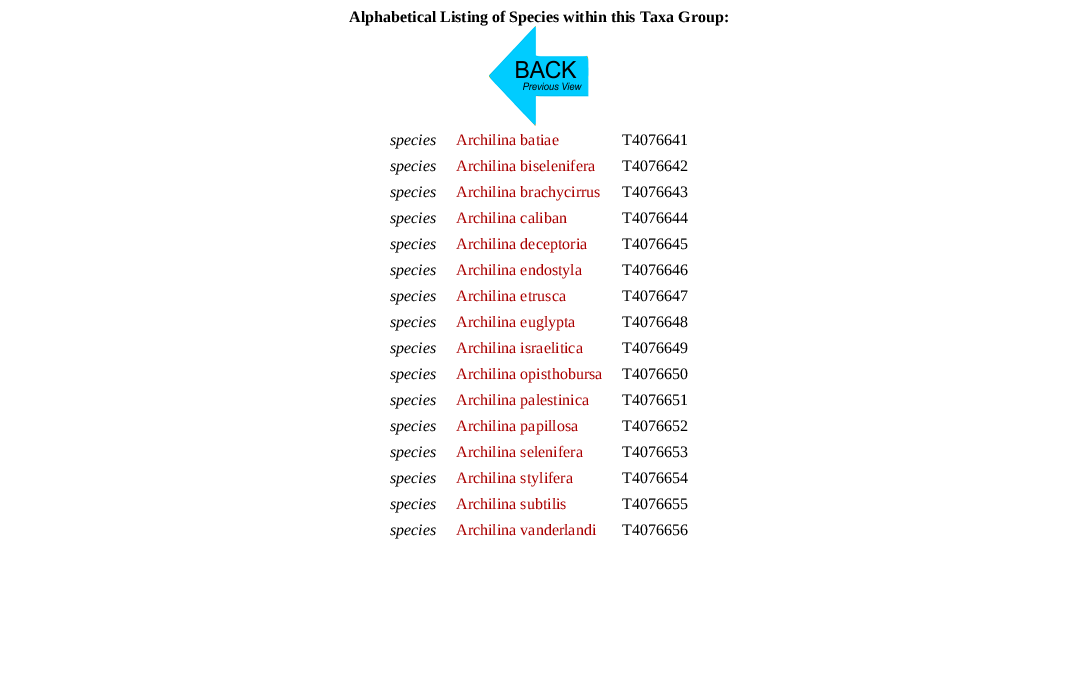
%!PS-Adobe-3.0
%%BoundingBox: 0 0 1078 687
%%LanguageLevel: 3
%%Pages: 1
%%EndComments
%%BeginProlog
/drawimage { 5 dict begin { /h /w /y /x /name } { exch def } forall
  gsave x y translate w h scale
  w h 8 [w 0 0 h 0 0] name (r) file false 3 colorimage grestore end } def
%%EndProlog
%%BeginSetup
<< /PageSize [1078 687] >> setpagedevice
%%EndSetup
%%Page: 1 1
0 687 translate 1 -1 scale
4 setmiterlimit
1 setgray
0 0 1078 687 rectfill
(images/1.raw) 489 26 100 100 drawimage
/LiberationSerif-Bold [16 0 0 -16 0 0] selectfont
0 setgray
349 22 moveto (Alphabetical Listing of Species within this Taxa Group:) show
/LiberationSerif-Italic [16 0 0 -16 0 0] selectfont
390 145 moveto (species) show
/LiberationSerif-Regular [16 0 0 -16 0 0] selectfont
0.667 0 0 setrgbcolor
456 145 moveto (Archilina batiae) show
0 setgray
622 145 moveto (T4076641) show
/LiberationSerif-Italic [16 0 0 -16 0 0] selectfont
390 171 moveto (species) show
/LiberationSerif-Regular [16 0 0 -16 0 0] selectfont
0.667 0 0 setrgbcolor
456 171 moveto (Archilina biselenifera) show
0 setgray
622 171 moveto (T4076642) show
/LiberationSerif-Italic [16 0 0 -16 0 0] selectfont
390 197 moveto (species) show
/LiberationSerif-Regular [16 0 0 -16 0 0] selectfont
0.667 0 0 setrgbcolor
456 197 moveto (Archilina brachycirrus) show
0 setgray
622 197 moveto (T4076643) show
/LiberationSerif-Italic [16 0 0 -16 0 0] selectfont
390 223 moveto (species) show
/LiberationSerif-Regular [16 0 0 -16 0 0] selectfont
0.667 0 0 setrgbcolor
456 223 moveto (Archilina caliban) show
0 setgray
622 223 moveto (T4076644) show
/LiberationSerif-Italic [16 0 0 -16 0 0] selectfont
390 249 moveto (species) show
/LiberationSerif-Regular [16 0 0 -16 0 0] selectfont
0.667 0 0 setrgbcolor
456 249 moveto (Archilina deceptoria) show
0 setgray
622 249 moveto (T4076645) show
/LiberationSerif-Italic [16 0 0 -16 0 0] selectfont
390 275 moveto (species) show
/LiberationSerif-Regular [16 0 0 -16 0 0] selectfont
0.667 0 0 setrgbcolor
456 275 moveto (Archilina endostyla) show
0 setgray
622 275 moveto (T4076646) show
/LiberationSerif-Italic [16 0 0 -16 0 0] selectfont
390 301 moveto (species) show
/LiberationSerif-Regular [16 0 0 -16 0 0] selectfont
0.667 0 0 setrgbcolor
456 301 moveto (Archilina etrusca) show
0 setgray
622 301 moveto (T4076647) show
/LiberationSerif-Italic [16 0 0 -16 0 0] selectfont
390 327 moveto (species) show
/LiberationSerif-Regular [16 0 0 -16 0 0] selectfont
0.667 0 0 setrgbcolor
456 327 moveto (Archilina euglypta) show
0 setgray
622 327 moveto (T4076648) show
/LiberationSerif-Italic [16 0 0 -16 0 0] selectfont
390 353 moveto (species) show
/LiberationSerif-Regular [16 0 0 -16 0 0] selectfont
0.667 0 0 setrgbcolor
456 353 moveto (Archilina israelitica) show
0 setgray
622 353 moveto (T4076649) show
/LiberationSerif-Italic [16 0 0 -16 0 0] selectfont
390 379 moveto (species) show
/LiberationSerif-Regular [16 0 0 -16 0 0] selectfont
0.667 0 0 setrgbcolor
456 379 moveto (Archilina opisthobursa) show
0 setgray
622 379 moveto (T4076650) show
/LiberationSerif-Italic [16 0 0 -16 0 0] selectfont
390 405 moveto (species) show
/LiberationSerif-Regular [16 0 0 -16 0 0] selectfont
0.667 0 0 setrgbcolor
456 405 moveto (Archilina palestinica) show
0 setgray
622 405 moveto (T4076651) show
/LiberationSerif-Italic [16 0 0 -16 0 0] selectfont
390 431 moveto (species) show
/LiberationSerif-Regular [16 0 0 -16 0 0] selectfont
0.667 0 0 setrgbcolor
456 431 moveto (Archilina papillosa) show
0 setgray
622 431 moveto (T4076652) show
/LiberationSerif-Italic [16 0 0 -16 0 0] selectfont
390 457 moveto (species) show
/LiberationSerif-Regular [16 0 0 -16 0 0] selectfont
0.667 0 0 setrgbcolor
456 457 moveto (Archilina selenifera) show
0 setgray
622 457 moveto (T4076653) show
/LiberationSerif-Italic [16 0 0 -16 0 0] selectfont
390 483 moveto (species) show
/LiberationSerif-Regular [16 0 0 -16 0 0] selectfont
0.667 0 0 setrgbcolor
456 483 moveto (Archilina stylifera) show
0 setgray
622 483 moveto (T4076654) show
/LiberationSerif-Italic [16 0 0 -16 0 0] selectfont
390 509 moveto (species) show
/LiberationSerif-Regular [16 0 0 -16 0 0] selectfont
0.667 0 0 setrgbcolor
456 509 moveto (Archilina subtilis) show
0 setgray
622 509 moveto (T4076655) show
/LiberationSerif-Italic [16 0 0 -16 0 0] selectfont
390 535 moveto (species) show
/LiberationSerif-Regular [16 0 0 -16 0 0] selectfont
0.667 0 0 setrgbcolor
456 535 moveto (Archilina vanderlandi) show
0 setgray
622 535 moveto (T4076656) show
showpage
%%EOF
